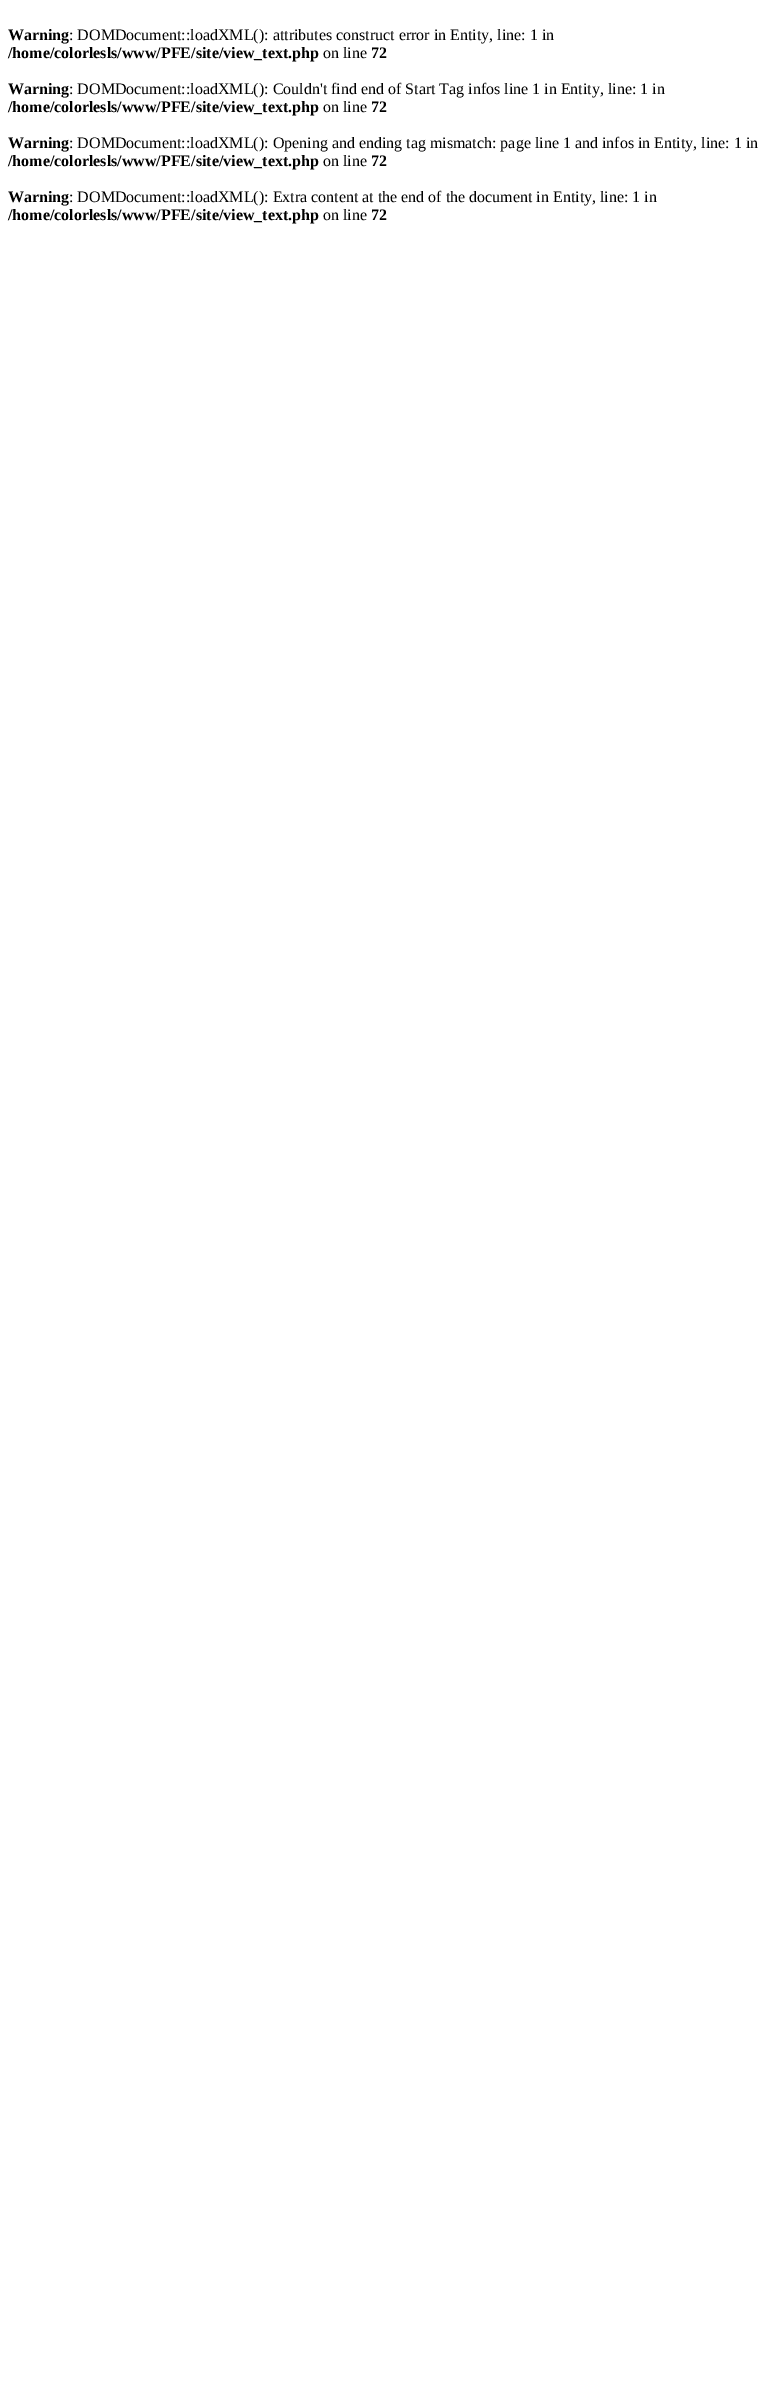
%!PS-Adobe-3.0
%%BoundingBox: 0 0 776 2398
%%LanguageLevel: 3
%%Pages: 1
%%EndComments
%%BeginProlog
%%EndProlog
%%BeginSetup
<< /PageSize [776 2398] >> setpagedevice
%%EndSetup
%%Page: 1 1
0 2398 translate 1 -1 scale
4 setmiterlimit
1 setgray
0 0 776 2398 rectfill
/LiberationSerif-Bold [16 0 0 -16 0 0] selectfont
0 setgray
8 40 moveto (Warning) show
/LiberationSerif-Regular [16 0 0 -16 0 0] selectfont
69 40 moveto (: DOMDocument::loadXML\(\): attributes construct error in Entity, line: 1 in) show
/LiberationSerif-Bold [16 0 0 -16 0 0] selectfont
8 58 moveto (/home/colorlesls/www/PFE/site/view_text.php) show
/LiberationSerif-Regular [16 0 0 -16 0 0] selectfont
323 58 moveto (on line) show
/LiberationSerif-Bold [16 0 0 -16 0 0] selectfont
371 58 moveto (72) show
8 94 moveto (Warning) show
/LiberationSerif-Regular [16 0 0 -16 0 0] selectfont
69 94 moveto (: DOMDocument::loadXML\(\): Couldn't find end of Start Tag infos line 1 in Entity, line: 1 in) show
/LiberationSerif-Bold [16 0 0 -16 0 0] selectfont
8 112 moveto (/home/colorlesls/www/PFE/site/view_text.php) show
/LiberationSerif-Regular [16 0 0 -16 0 0] selectfont
323 112 moveto (on line) show
/LiberationSerif-Bold [16 0 0 -16 0 0] selectfont
371 112 moveto (72) show
8 148 moveto (Warning) show
/LiberationSerif-Regular [16 0 0 -16 0 0] selectfont
69 148 moveto (: DOMDocument::loadXML\(\): Opening and ending tag mismatch: page line 1 and infos in Entity, line: 1 in) show
/LiberationSerif-Bold [16 0 0 -16 0 0] selectfont
8 166 moveto (/home/colorlesls/www/PFE/site/view_text.php) show
/LiberationSerif-Regular [16 0 0 -16 0 0] selectfont
323 166 moveto (on line) show
/LiberationSerif-Bold [16 0 0 -16 0 0] selectfont
371 166 moveto (72) show
8 202 moveto (Warning) show
/LiberationSerif-Regular [16 0 0 -16 0 0] selectfont
69 202 moveto (: DOMDocument::loadXML\(\): Extra content at the end of the document in Entity, line: 1 in) show
/LiberationSerif-Bold [16 0 0 -16 0 0] selectfont
8 220 moveto (/home/colorlesls/www/PFE/site/view_text.php) show
/LiberationSerif-Regular [16 0 0 -16 0 0] selectfont
323 220 moveto (on line) show
/LiberationSerif-Bold [16 0 0 -16 0 0] selectfont
371 220 moveto (72) show
showpage
%%EOF
